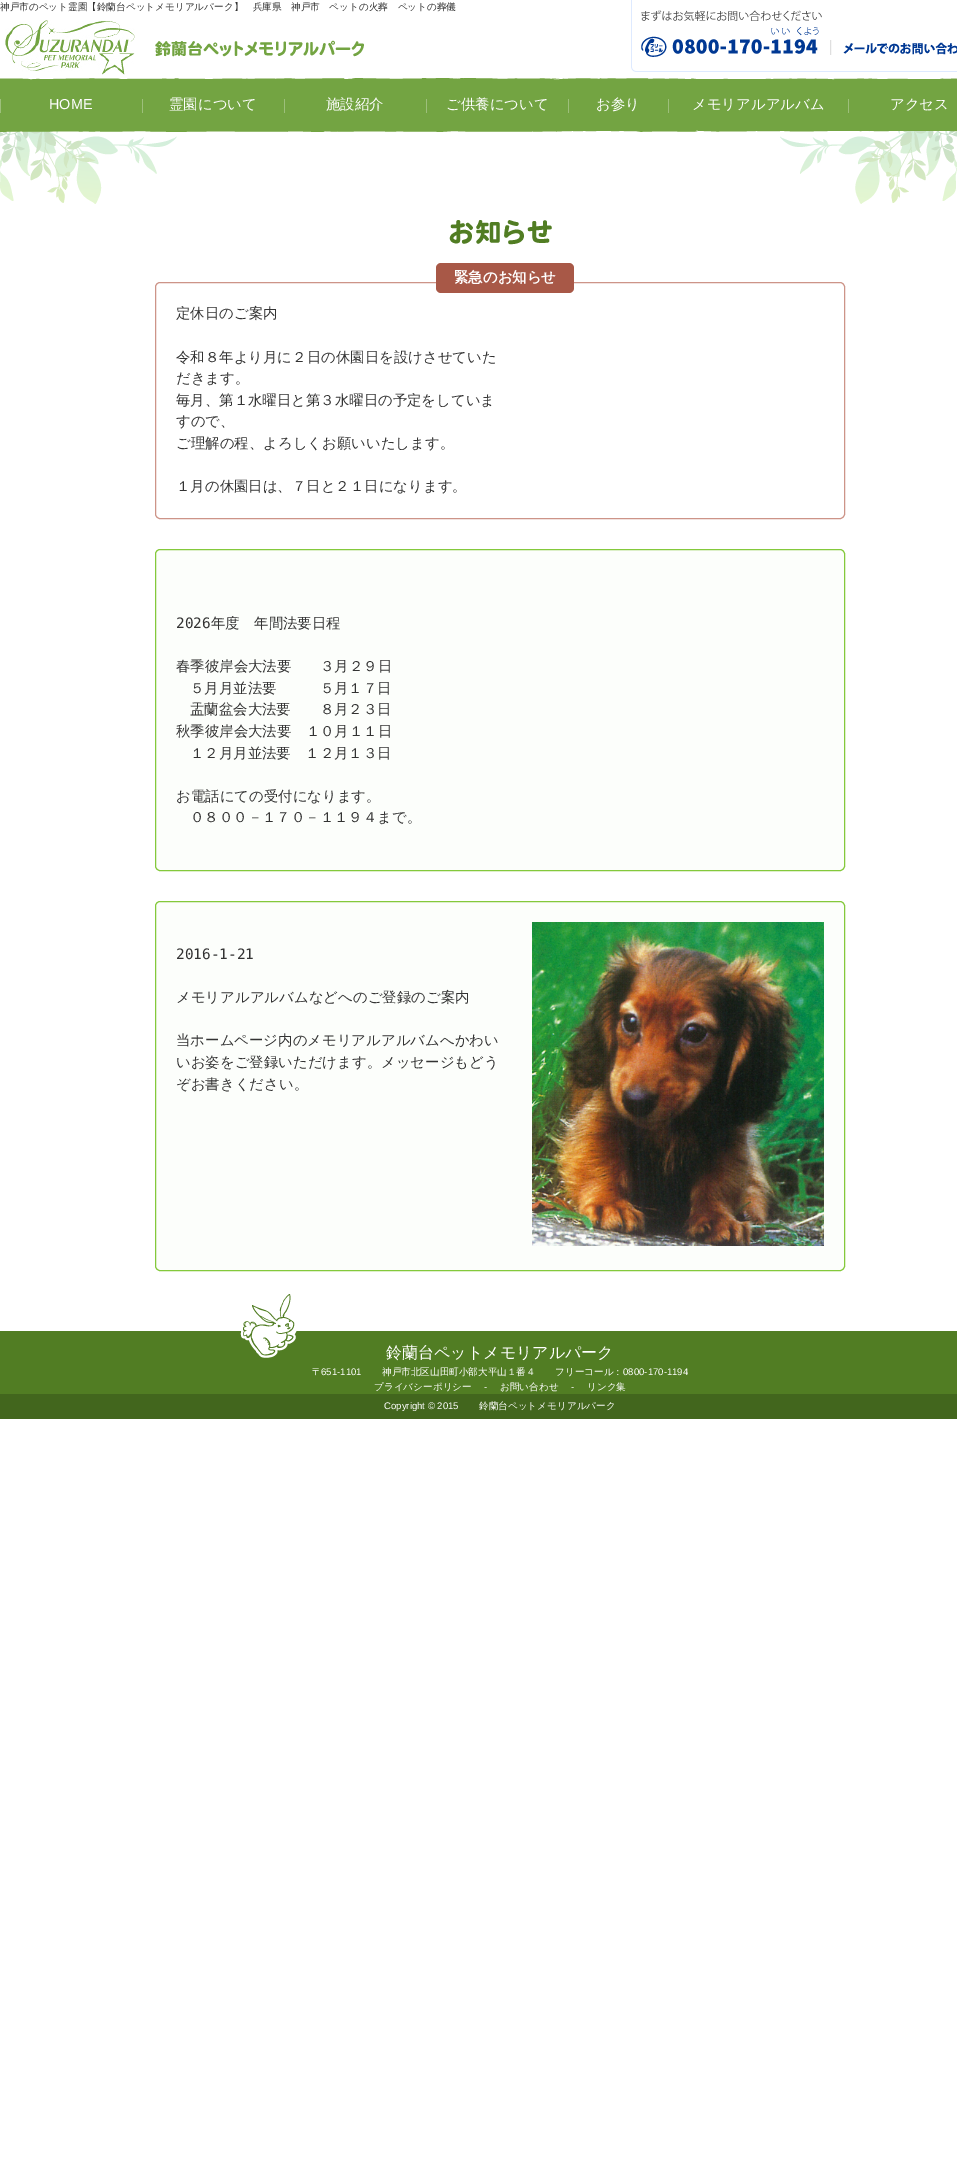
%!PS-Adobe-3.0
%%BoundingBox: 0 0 957 2162
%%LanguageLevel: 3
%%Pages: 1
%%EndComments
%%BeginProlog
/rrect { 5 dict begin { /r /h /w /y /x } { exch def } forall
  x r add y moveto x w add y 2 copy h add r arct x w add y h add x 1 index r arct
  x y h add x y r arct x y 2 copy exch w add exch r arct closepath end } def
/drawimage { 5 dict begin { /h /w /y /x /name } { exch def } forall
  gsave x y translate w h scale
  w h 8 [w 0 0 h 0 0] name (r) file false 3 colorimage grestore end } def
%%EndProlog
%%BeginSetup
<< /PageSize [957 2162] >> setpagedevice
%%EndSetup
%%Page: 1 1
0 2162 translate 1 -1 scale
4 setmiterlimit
1 setgray
0 0 957 2162 rectfill
(images/1.raw) 0 131 957 73 drawimage
(images/2.raw) 631 0 326 72 drawimage
(images/3.raw) 5 20 359 55 drawimage
(images/4.raw) 0 78 957 54 drawimage
0.616 0.749 0.482 setrgbcolor
0 99 1 14 rectfill
142 99 1 14 rectfill
284 99 1 14 rectfill
426 99 1 14 rectfill
568 99 1 14 rectfill
668 99 1 14 rectfill
848 99 1 14 rectfill
(images/5.raw) 449 220 103 25 drawimage
0.804 0.58 0.533 setrgbcolor
155.5 282.5 689 236 4.5 rrect stroke
0.659 0.345 0.278 setrgbcolor
436 263 138 30 5 rrect fill
0.988 0.996 0.984 setrgbcolor
155.5 549.5 689 321 4.5 rrect gsave fill grestore
0.518 0.788 0.231 setrgbcolor
stroke
0.988 0.996 0.984 setrgbcolor
155.5 901.5 689 369 4.5 rrect gsave fill grestore
0.518 0.788 0.231 setrgbcolor
stroke
(images/6.raw) 532 922 292 324 drawimage
0.318 0.49 0.137 setrgbcolor
0 1331 957 63 rectfill
(images/7.raw) 240 1294 57 64 drawimage
0.259 0.4 0.114 setrgbcolor
0 1394 957 25 rectfill
/WenQuanYiZenHei-Medium [9.6 0 0 -9.6 0 0] selectfont
0.2 setgray
0 10 moveto (神戸市のペット霊園【鈴蘭台ペットメモリアルパーク】　兵庫県　神戸市　ペットの火葬　ペットの葬儀) show
/LiberationSans-Regular [14.4 0 0 -14.4 0 0] selectfont
1 setgray
49 109 moveto (HOME) show
/WenQuanYiZenHei-Medium [14.4 0 0 -14.4 0 0] selectfont
169 109 moveto (霊園について) show
326 109 moveto (施設紹介) show
446 109 moveto (ご供養について) show
596 109 moveto (お参り) show
692 109 moveto (メモリアルアルバム) show
890 109 moveto (アクセス) show
/WenQuanYiZenHei-Bold [14.4 0 0 -14.4 0 0] selectfont
454 282 moveto (緊急のお知らせ) show
/WenQuanYiZenHei-Medium [14.4 0 0 -14.4 0 0] selectfont
0.2 setgray
176 318 moveto (定休日のご案内) show
176 362 moveto (令和８年より月に２日の休園日を設けさせていた) show
176 383 moveto (だきます。) show
176 405 moveto (毎月、第１水曜日と第３水曜日の予定をしていま) show
176 426 moveto (すので、) show
176 448 moveto (ご理解の程、よろしくお願いいたします。) show
176 491 moveto (１月の休園日は、７日と２１日になります。) show
/DejaVuSansMono-Regular [14.4 0 0 -14.4 0 0] selectfont
176 628 moveto (2026) show
/WenQuanYiZenHei-Medium [14.4 0 0 -14.4 0 0] selectfont
211 628 moveto (年度　年間法要日程) show
176 671 moveto (春季彼岸会大法要　　３月２９日) show
190 693 moveto (５月月並法要　　　５月１７日) show
190 714 moveto (盂蘭盆会大法要　　８月２３日) show
176 736 moveto (秋季彼岸会大法要　１０月１１日) show
190 758 moveto (１２月月並法要　１２月１３日) show
176 801 moveto (お電話にての受付になります。) show
190 822 moveto (０８００－１７０－１１９４まで。) show
/DejaVuSansMono-Regular [14.4 0 0 -14.4 0 0] selectfont
176 959 moveto (2016-1-21) show
/WenQuanYiZenHei-Medium [14.4 0 0 -14.4 0 0] selectfont
176 1002 moveto (メモリアルアルバムなどへのご登録のご案内) show
176 1045 moveto (当ホームページ内のメモリアルアルバムへかわい) show
176 1067 moveto (いお姿をご登録いただけます。メッセージもどう) show
176 1089 moveto (ぞお書きください。) show
/WenQuanYiZenHei-Medium [16 0 0 -16 0 0] selectfont
1 setgray
386 1358 moveto (鈴蘭台ペットメモリアルパーク) show
/WenQuanYiZenHei-Medium [9.6 0 0 -9.6 0 0] selectfont
312 1375 moveto (〒) show
/LiberationSans-Regular [9.6 0 0 -9.6 0 0] selectfont
321 1375 moveto (651-1101) show
/WenQuanYiZenHei-Medium [9.6 0 0 -9.6 0 0] selectfont
382 1375 moveto (神戸市北区山田町小部大平山１番４) show
555 1375 moveto (フリーコール：) show
/LiberationSans-Regular [9.6 0 0 -9.6 0 0] selectfont
623 1375 moveto (0800-170-1194) show
/WenQuanYiZenHei-Medium [9.6 0 0 -9.6 0 0] selectfont
374 1390 moveto (プライバシーポリシー) show
/LiberationSans-Regular [9.6 0 0 -9.6 0 0] selectfont
484 1390 moveto (-) show
/WenQuanYiZenHei-Medium [9.6 0 0 -9.6 0 0] selectfont
500 1390 moveto (お問い合わせ) show
/LiberationSans-Regular [9.6 0 0 -9.6 0 0] selectfont
571 1390 moveto (-) show
/WenQuanYiZenHei-Medium [9.6 0 0 -9.6 0 0] selectfont
587 1390 moveto (リンク集) show
/LiberationSans-Regular [9.6 0 0 -9.6 0 0] selectfont
384 1409 moveto (Copyright © 2015) show
/WenQuanYiZenHei-Medium [9.6 0 0 -9.6 0 0] selectfont
479 1409 moveto (鈴蘭台ペットメモリアルパーク) show
showpage
%%EOF
